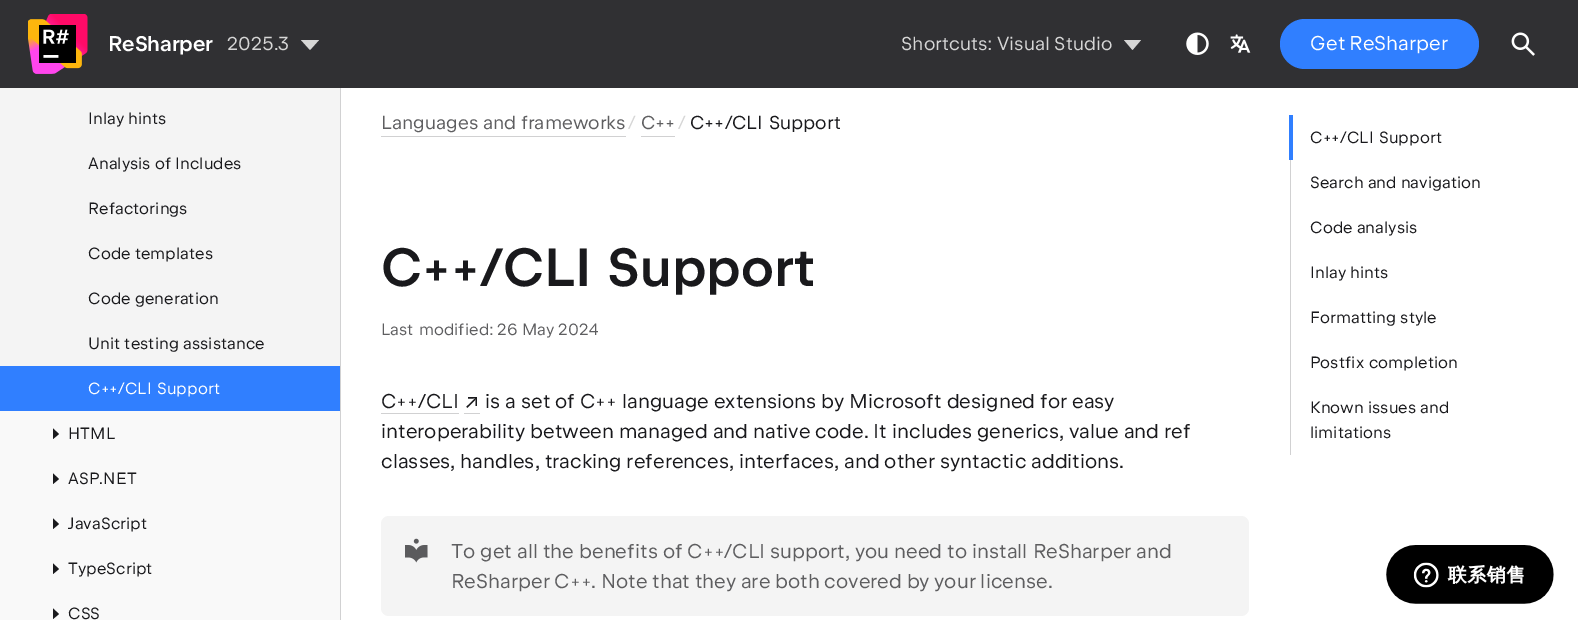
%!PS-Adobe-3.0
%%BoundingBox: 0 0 1578 620
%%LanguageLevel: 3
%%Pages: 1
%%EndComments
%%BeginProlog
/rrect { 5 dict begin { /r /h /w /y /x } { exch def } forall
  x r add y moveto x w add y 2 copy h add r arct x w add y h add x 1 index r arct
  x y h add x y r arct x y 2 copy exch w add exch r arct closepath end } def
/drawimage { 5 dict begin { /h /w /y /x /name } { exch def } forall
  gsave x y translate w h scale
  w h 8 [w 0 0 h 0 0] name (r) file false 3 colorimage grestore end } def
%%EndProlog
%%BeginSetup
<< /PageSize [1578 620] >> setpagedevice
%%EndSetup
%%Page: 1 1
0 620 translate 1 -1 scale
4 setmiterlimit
1 setgray
0 0 1578 620 rectfill
0.188 0.188 0.2 setrgbcolor
0 0 1578 88 rectfill
(images/1.raw) 28 14 60 60 drawimage
0.839 setgray
newpath 310 50 moveto 301 40 lineto 319 40 lineto closepath fill
newpath 1132.5 50 moveto 1124 40 lineto 1141 40 lineto closepath fill
(images/2.raw) 1186 32 23 23 drawimage
(images/3.raw) 1230 34 21 19 drawimage
0.188 0.498 1 setrgbcolor
1280 19 199 50 25 rrect fill
(images/4.raw) 1511 32 24 24 drawimage
0.82 0.82 0.824 setrgbcolor
340 88 1 532 rectfill
0.957 setgray
0 88 340 278 rectfill
0.188 0.498 1 setrgbcolor
0 366 340 45 rectfill
0.976 setgray
0 411 340 209 rectfill
0.098 0.098 0.11 setrgbcolor
newpath 59 434 moveto 53 439 lineto 53 428.5 lineto closepath fill
newpath 59 479 moveto 53 484 lineto 53 473.5 lineto closepath fill
newpath 59 524 moveto 53 529 lineto 53 518.5 lineto closepath fill
newpath 59 569 moveto 53 574 lineto 53 563.5 lineto closepath fill
newpath 59 614 moveto 53 619 lineto 53 608.5 lineto closepath fill
0.82 0.82 0.824 setrgbcolor
381 136 245 1 rectfill
641 136 34 1 rectfill
381 413 78 1 rectfill
464 413 16 1 rectfill
0.957 setgray
381 516 868 100 8 rrect fill
(images/5.raw) 405 538 23 25 drawimage
0.188 0.498 1 setrgbcolor
1289 115 4 45 rectfill
0.82 0.82 0.824 setrgbcolor
1290 160 1 295 rectfill
(images/6.raw) 1386 545 168 59 drawimage
/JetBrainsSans-Medium [21.25 0 0 -21.25 0 0] selectfont
1 setgray
108 51 moveto -0.1 0 (ReSharper) ashow
/JetBrainsSans-Regular [18.75 0 0 -18.75 0 0] selectfont
0.839 setgray
227 50 moveto 0.03 0 (2025.3) ashow
901 50 moveto 0.03 0 (Shortcuts:) ashow
997 50 moveto 0.03 0 (Visual Studio) ashow
/JetBrainsSans-Regular [20 0 0 -20 0 0] selectfont
1 setgray
1310 50 moveto -1 0 32 0.03 0 (Get ReSharper) awidthshow
/JetBrainsSans-Regular [16.25 0 0 -16.25 0 0] selectfont
0.098 0.098 0.11 setrgbcolor
88 124 moveto 0.1 0 (Inlay hints) ashow
88 169 moveto 0.1 0 (Analysis of Includes) ashow
88 214 moveto 0.1 0 (Refactorings) ashow
88 259 moveto 0.1 0 (Code templates) ashow
88 304 moveto 0.1 0 (Code generation) ashow
88 349 moveto 0.1 0 (Unit testing assistance) ashow
1 setgray
88 394 moveto 1 0 32 0.1 0 (C++/CLI Support) awidthshow
0.098 0.098 0.11 setrgbcolor
68 439 moveto 0.1 0 (HTML) ashow
68 484 moveto 0.1 0 (ASP.NET) ashow
68 529 moveto 0.1 0 (JavaScript) ashow
68 574 moveto 0.1 0 (TypeScript) ashow
68 619 moveto 0.1 0 (CSS) ashow
/JetBrainsSans-Regular [18.75 0 0 -18.75 0 0] selectfont
0.369 0.369 0.376 setrgbcolor
381 129 moveto 0.03 0 (Languages and frameworks) ashow
0.839 setgray
628 129 moveto 0.03 0 (/) ashow
0.369 0.369 0.376 setrgbcolor
641 129 moveto 0.03 0 (C++) ashow
0.839 setgray
678 129 moveto 0.03 0 (/) ashow
0.098 0.098 0.11 setrgbcolor
690 129 moveto 1 0 32 0.03 0 (C++/CLI Support) awidthshow
/JetBrainsSans-Medium [53.75 0 0 -53.75 0 0] selectfont
381 286 moveto 3 0 32 (C++/CLI Support) widthshow
/JetBrainsSans-Regular [16.25 0 0 -16.25 0 0] selectfont
0.369 0.369 0.376 setrgbcolor
381 335 moveto 1 0 32 0.1 0 (Last modified:) awidthshow
497 335 moveto 0.1 0 (26 May 2024) ashow
/JetBrainsSans-Regular [20 0 0 -20 0 0] selectfont
0.098 0.098 0.11 setrgbcolor
381 408 moveto 0.03 0 (C++/CLI) ashow
/Inter-Regular [20 0 0 -20 0 0] selectfont
464 408 moveto 0.03 0 (↗) ashow
/JetBrainsSans-Regular [20 0 0 -20 0 0] selectfont
485 408 moveto 0.03 0 (is a set of C++ language extensions by Microsoft designed for easy) ashow
381 438 moveto 0.03 0 (interoperability between managed and native code. It includes generics, value and ref) ashow
381 468 moveto 0.03 0 (classes, handles, tracking references, interfaces, and other syntactic additions.) ashow
0.369 0.369 0.376 setrgbcolor
451 558 moveto 0.03 0 (To get all the benefits of C++/CLI support, you need to install ReSharper and) ashow
451 588 moveto -0.25 0 32 0.03 0 (ReSharper C++. Note that they are both covered by your license.) awidthshow
/JetBrainsSans-Regular [16.25 0 0 -16.25 0 0] selectfont
0.098 0.098 0.11 setrgbcolor
1310 143 moveto 1 0 32 0.1 0 (C++/CLI Support) awidthshow
1310 188 moveto 0.1 0 (Search and navigation) ashow
1310 233 moveto 0.1 0 (Code analysis) ashow
1310 278 moveto 0.1 0 (Inlay hints) ashow
1310 323 moveto 0.1 0 (Formatting style) ashow
1310 368 moveto 1 0 32 0.1 0 (Postfix completion) awidthshow
1310 413 moveto 0.1 0 (Known issues and) ashow
1310 438 moveto 0.1 0 (limitations) ashow
showpage
%%EOF
